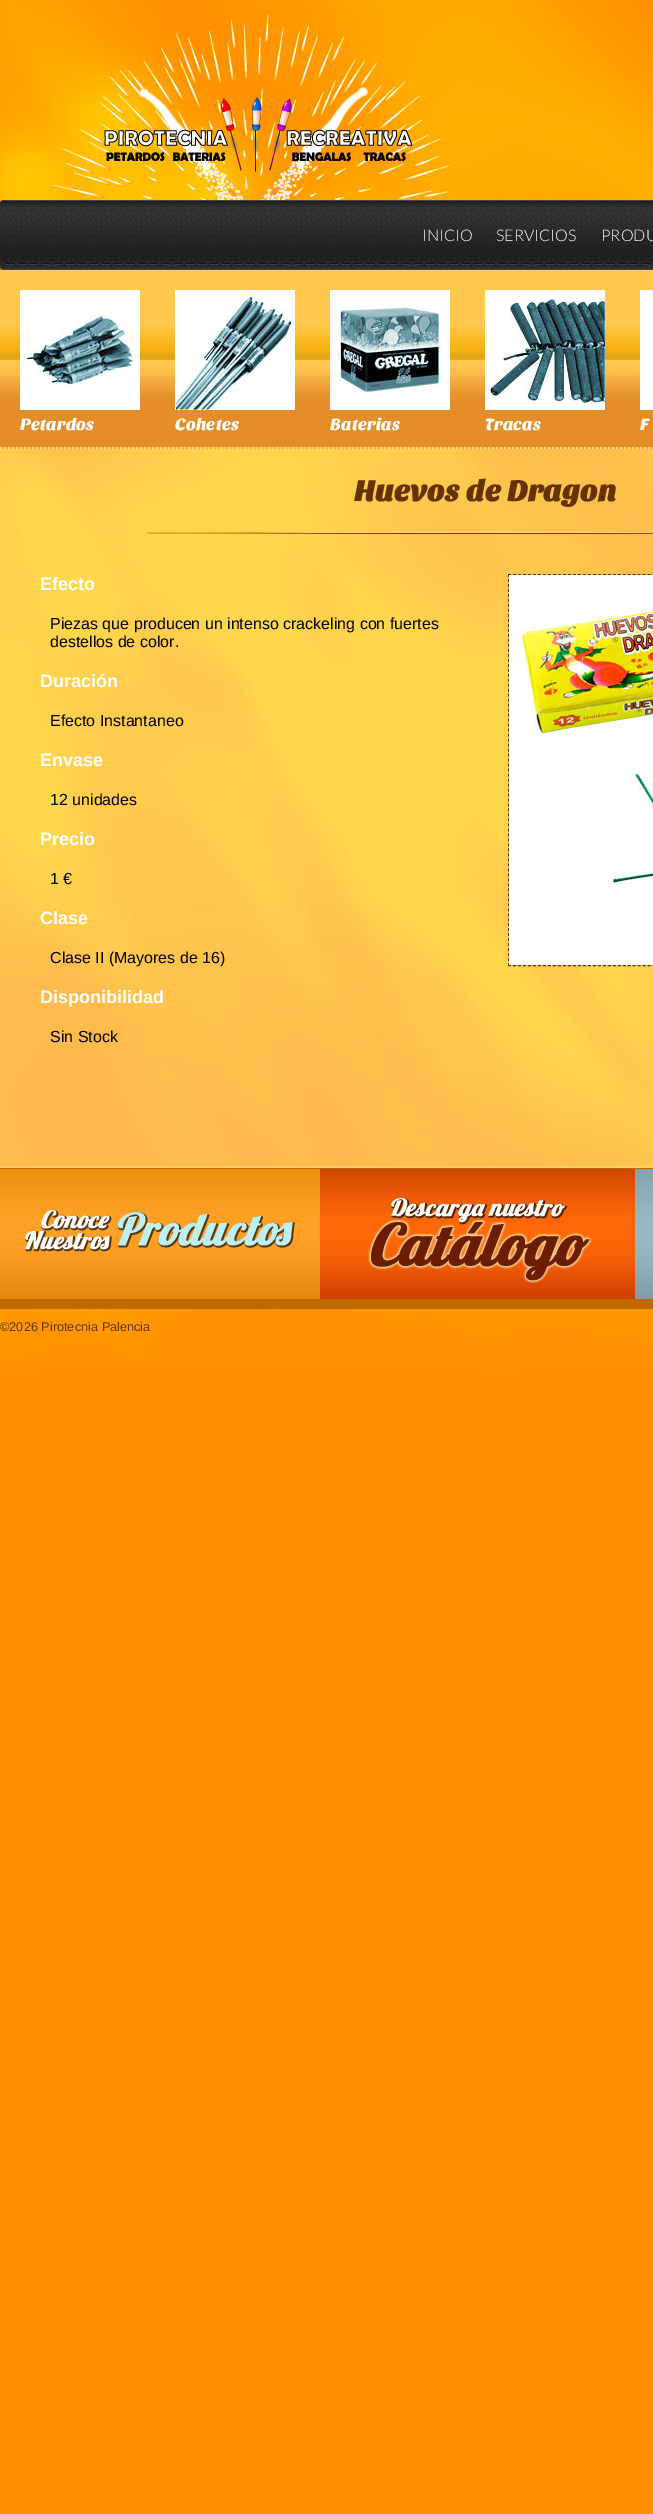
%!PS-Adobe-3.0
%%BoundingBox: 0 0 653 2514
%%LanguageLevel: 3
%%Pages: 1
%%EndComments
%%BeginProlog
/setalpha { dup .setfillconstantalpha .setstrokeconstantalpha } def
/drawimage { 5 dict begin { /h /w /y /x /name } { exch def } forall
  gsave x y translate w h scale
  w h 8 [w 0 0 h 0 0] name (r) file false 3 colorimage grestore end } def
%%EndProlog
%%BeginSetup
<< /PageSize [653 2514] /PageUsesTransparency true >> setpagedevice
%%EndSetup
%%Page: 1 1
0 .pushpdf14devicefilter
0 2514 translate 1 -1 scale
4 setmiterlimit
1 0.557 0 setrgbcolor
0 0 653 2514 rectfill
(images/1.raw) 0 0 653 1372 drawimage
(images/2.raw) 52 14 397 186 drawimage
(images/3.raw) 0 200 653 70 drawimage
(images/4.raw) 0 270 653 177 drawimage
1 0.8 0.6 setrgbcolor
2 setlinewidth
[2 2] 0 setdash
newpath 0 448 moveto 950 448 lineto stroke
(images/5.raw) 20 290 120 120 drawimage
(images/6.raw) 175 290 120 120 drawimage
(images/7.raw) 330 290 120 120 drawimage
(images/8.raw) 485 290 120 120 drawimage
1 setgray
640 290 13 120 rectfill
0.3 setalpha
0 449 653 717 rectfill
1 setalpha
1 0.8 0.4 setrgbcolor
0 1166 653 2 rectfill
(images/9.raw) 147 532 506 2 drawimage
0.4 0.2 0 setrgbcolor
1 setlinewidth
[3 1.99] 0 setdash
newpath 508 574.5 moveto 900 574.5 lineto stroke
newpath 508 965.5 moveto 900 965.5 lineto stroke
newpath 508.5 574 moveto 508.5 966 lineto stroke
(images/10.raw) 509 575 144 390 drawimage
(images/11.raw) 0 1169 320 130 drawimage
0.749 0.416 0 setrgbcolor
0 1168 653 1 rectfill
0 1299 653 10 rectfill
(images/12.raw) 25 1210 270 42 drawimage
(images/13.raw) 320 1169 315 130 drawimage
(images/14.raw) 368 1198 225 86 drawimage
(images/15.raw) 635 1169 18 130 drawimage
/Lato-Light [16 0 0 -16 0 0] selectfont
1 setgray
422 241 moveto (INICIO) show
496 241 moveto (SERVICIOS) show
601 241 moveto (PRODU) show
/SansitaOne-Regular [17 0 0 -17 0 0] selectfont
20 430 moveto (Petardos) show
175 430 moveto (Cohetes) show
330 430 moveto (Baterias) show
485 430 moveto (Tracas) show
640 430 moveto (F) show
/SansitaOne-Bold [30 0 0 -30 0 0] selectfont
0.4 0.2 0 setrgbcolor
354 501 moveto (Huevos de Dragon) show
/LiberationSans-Bold [18 0 0 -18 0 0] selectfont
1 setgray
40 590 moveto (Efecto) show
/LiberationSans-Regular [16 0 0 -16 0 0] selectfont
0 setgray
50 629 moveto (Piezas que producen un intenso crackeling con fuertes) show
50 647 moveto (destellos de color.) show
/LiberationSans-Bold [18 0 0 -18 0 0] selectfont
1 setgray
40 687 moveto (Duración) show
/LiberationSans-Regular [16 0 0 -16 0 0] selectfont
0 setgray
50 726 moveto (Efecto Instantaneo) show
/LiberationSans-Bold [18 0 0 -18 0 0] selectfont
1 setgray
40 766 moveto (Envase) show
/LiberationSans-Regular [16 0 0 -16 0 0] selectfont
0 setgray
50 805 moveto (12 unidades) show
/LiberationSans-Bold [18 0 0 -18 0 0] selectfont
1 setgray
40 845 moveto (Precio) show
/LiberationSans-Regular [16 0 0 -16 0 0] selectfont
0 setgray
50 884 moveto (1 €) show
/LiberationSans-Bold [18 0 0 -18 0 0] selectfont
1 setgray
40 924 moveto (Clase) show
/LiberationSans-Regular [16 0 0 -16 0 0] selectfont
0 setgray
50 963 moveto (Clase II \(Mayores de 16\)) show
/LiberationSans-Bold [18 0 0 -18 0 0] selectfont
1 setgray
40 1003 moveto (Disponibilidad) show
/LiberationSans-Regular [16 0 0 -16 0 0] selectfont
0 setgray
50 1042 moveto (Sin Stock) show
/LiberationSans-Regular [12.75 0 0 -12.75 0 0] selectfont
0.4 0.2 0 setrgbcolor
0 1331 moveto (©2026 Pirotecnia Palencia) show
.poppdf14devicefilter showpage
%%EOF
